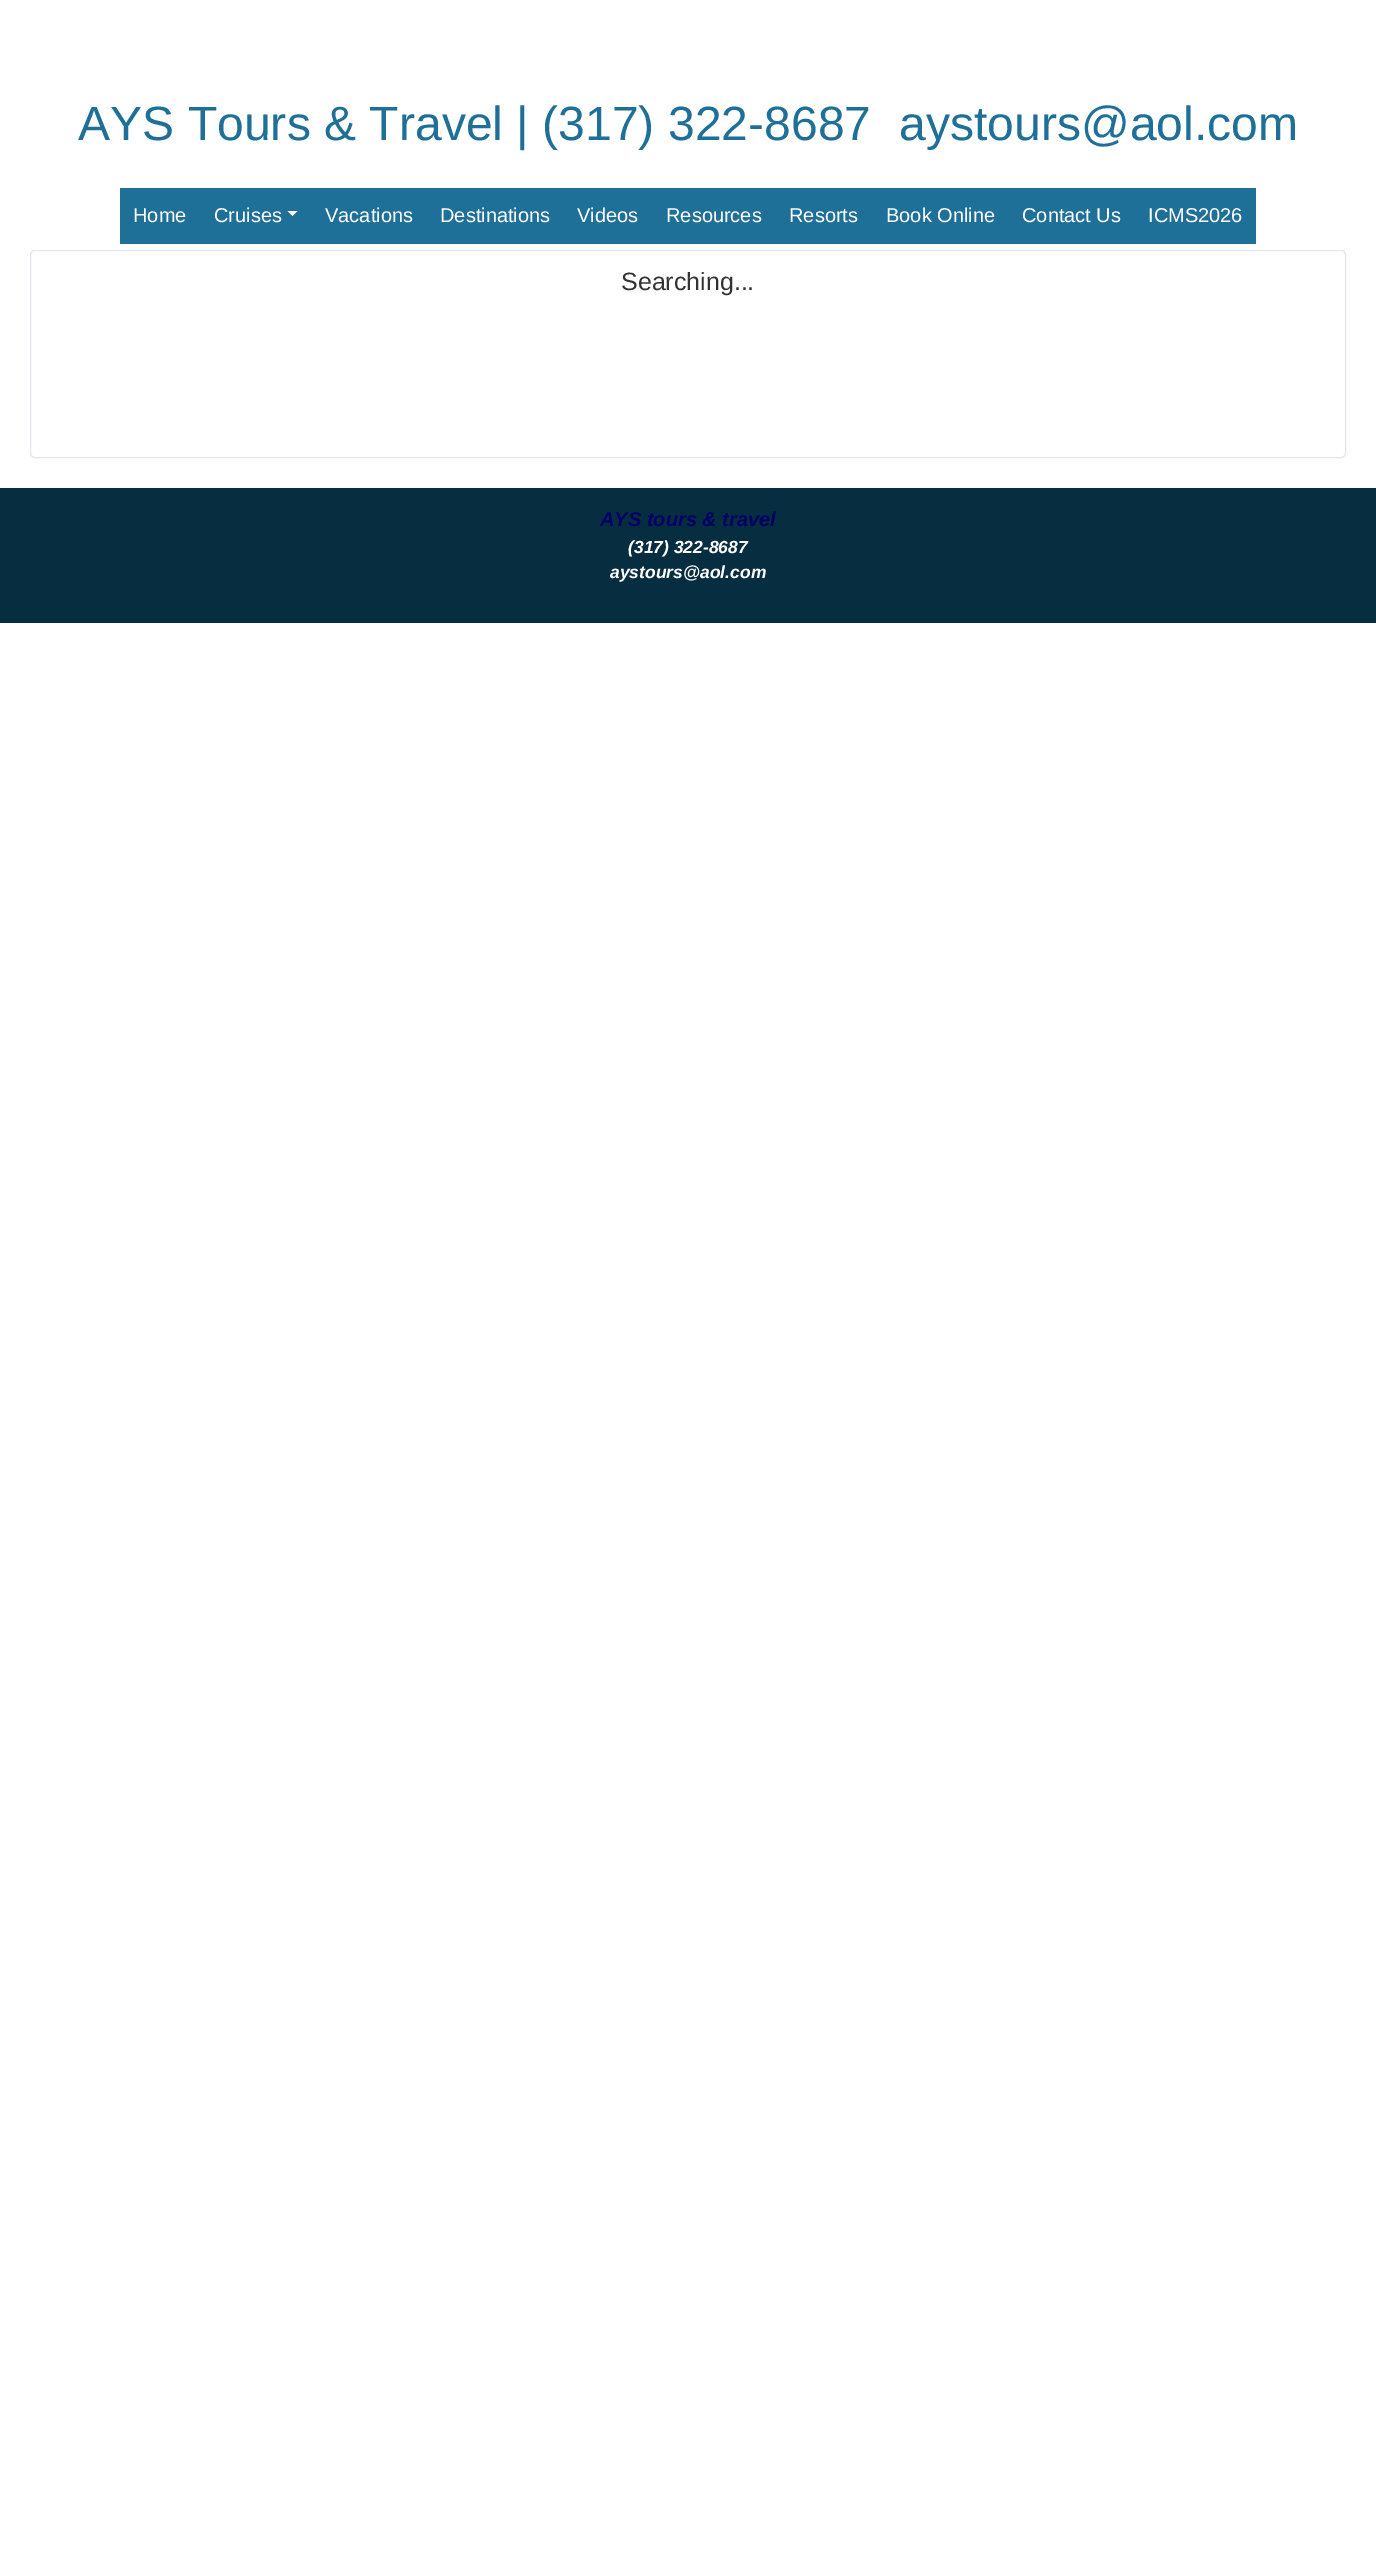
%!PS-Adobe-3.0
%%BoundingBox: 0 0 1376 2554
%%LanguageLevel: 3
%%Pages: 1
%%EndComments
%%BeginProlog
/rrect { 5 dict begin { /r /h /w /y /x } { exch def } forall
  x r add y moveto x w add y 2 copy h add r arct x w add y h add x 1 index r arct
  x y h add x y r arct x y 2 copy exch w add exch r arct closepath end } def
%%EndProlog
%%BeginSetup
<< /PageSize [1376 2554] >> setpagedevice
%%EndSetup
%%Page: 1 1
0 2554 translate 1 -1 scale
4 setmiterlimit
1 setgray
0 0 1376 2554 rectfill
0.122 0.439 0.6 setrgbcolor
120 188 80 56 rectfill
200 188 1056 56 rectfill
1 setgray
newpath 287.5 211 moveto 297.5 211 lineto 292.5 216 lineto closepath fill
0.894 0.902 0.937 setrgbcolor
30.5 250.5 1315 207 4.5 rrect stroke
0.024 0.176 0.251 setrgbcolor
0 488 1376 135 rectfill
/LiberationSans-Regular [48.1 0 0 -48.1 0 0] selectfont
0.122 0.439 0.6 setrgbcolor
78 140 moveto (AYS Tours & Travel | \(317\) 322-8687) show
899 140 moveto (aystours@aol.com) show
/LiberationSans-Regular [20 0 0 -20 0 0] selectfont
1 setgray
133 222 moveto (Home) show
214 222 moveto (Cruises) show
325 222 moveto (Vacations) show
440 222 moveto (Destinations) show
577 222 moveto (Videos) show
666 222 moveto (Resources) show
789 222 moveto (Resorts) show
886 222 moveto (Book Online) show
1022 222 moveto (Contact Us) show
1148 222 moveto (ICMS2026) show
/LiberationSans-Regular [25 0 0 -25 0 0] selectfont
0.2 setgray
621 290 moveto (Searching...) show
/LiberationSans-BoldItalic [20 0 0 -20 0 0] selectfont
0 0 0.4 setrgbcolor
600 526 moveto (AYS tours & travel) show
/LiberationSans-BoldItalic [17.5 0 0 -17.5 0 0] selectfont
1 setgray
628 553 moveto (\(317\) 322-8687) show
610 578 moveto (aystours@aol.com) show
showpage
%%EOF
